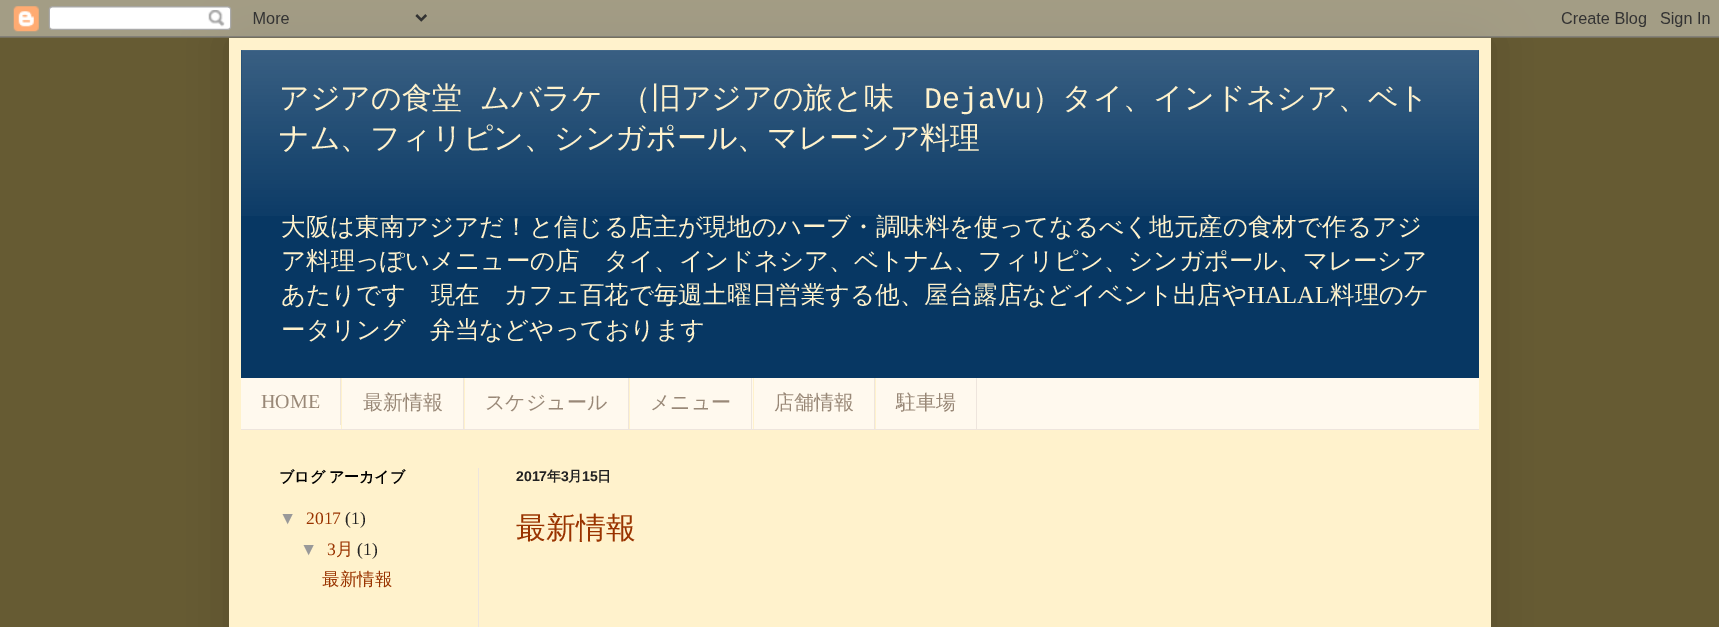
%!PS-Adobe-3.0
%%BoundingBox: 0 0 1719 627
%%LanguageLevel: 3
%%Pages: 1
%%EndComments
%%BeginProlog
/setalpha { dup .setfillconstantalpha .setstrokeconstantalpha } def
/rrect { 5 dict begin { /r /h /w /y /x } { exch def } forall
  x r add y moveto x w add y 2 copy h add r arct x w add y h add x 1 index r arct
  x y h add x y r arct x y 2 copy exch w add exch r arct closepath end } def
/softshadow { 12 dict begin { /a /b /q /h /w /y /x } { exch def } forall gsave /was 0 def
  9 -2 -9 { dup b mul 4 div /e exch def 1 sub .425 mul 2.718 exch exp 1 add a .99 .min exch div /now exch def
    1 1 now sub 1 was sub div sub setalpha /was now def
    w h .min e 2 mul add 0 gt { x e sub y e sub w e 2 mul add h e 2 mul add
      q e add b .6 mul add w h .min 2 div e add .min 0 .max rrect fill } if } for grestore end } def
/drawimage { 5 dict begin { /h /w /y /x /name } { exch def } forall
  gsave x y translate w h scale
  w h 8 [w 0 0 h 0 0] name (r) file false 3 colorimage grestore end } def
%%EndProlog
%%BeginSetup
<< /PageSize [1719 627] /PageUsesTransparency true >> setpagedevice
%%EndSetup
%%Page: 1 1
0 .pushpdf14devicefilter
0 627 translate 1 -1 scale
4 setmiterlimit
0.4 0.357 0.2 setrgbcolor
0 0 1719 627 rectfill
0 setgray
229 38 1262 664 0 25 0.15 softshadow
(images/1.raw) 0 0 1719 38 drawimage
1 0.949 0.8 setrgbcolor
229 38 1262 589 rectfill
0.027 0.216 0.388 setrgbcolor
241 50 1238 328 rectfill
(images/2.raw) 241 50 1238 166 drawimage
1 0.976 0.933 setrgbcolor
241 378 1238 51 rectfill
0.933 0.898 0.867 setrgbcolor
241 429 1238 1 rectfill
340 378 1 47 rectfill
463 378 1 51 rectfill
1 0.949 0.8 setrgbcolor
341 378 1 51 rectfill
0.933 0.898 0.867 setrgbcolor
628 378 1 51 rectfill
1 0.949 0.8 setrgbcolor
464 378 1 51 rectfill
0.933 0.898 0.867 setrgbcolor
751 378 1 51 rectfill
1 0.949 0.8 setrgbcolor
629 378 1 51 rectfill
0.933 0.898 0.867 setrgbcolor
874 378 1 51 rectfill
1 0.949 0.8 setrgbcolor
753 378 1 51 rectfill
0.933 0.898 0.867 setrgbcolor
976 378 1 51 rectfill
1 0.949 0.8 setrgbcolor
875 378 1 51 rectfill
0.933 0.898 0.867 setrgbcolor
478 468 1 159 rectfill
/WenQuanYiZenHei-Medium [30 0 0 -30 0 0] selectfont
1 0.949 0.8 setrgbcolor
279 108 moveto 9 0 32 (アジアの食堂 ムバラケ （旧アジアの旅と味) widthshow
/LiberationMono-Regular [30 0 0 -30 0 0] selectfont
924 108 moveto (DejaVu) show
/WenQuanYiZenHei-Medium [30 0 0 -30 0 0] selectfont
1032 108 moveto (）タイ、インドネシア、ベト) show
279 148 moveto (ナム、フィリピン、シンガポール、マレーシア料理) show
/WenQuanYiZenHei-Medium [24.5 0 0 -24.5 0 0] selectfont
281 235 moveto (大阪は東南アジアだ！と信じる店主が現地のハーブ・調味料を使ってなるべく地元産の食材で作るアジ) show
281 269 moveto (ア料理っぽいメニューの店　タイ、インドネシア、ベトナム、フィリピン、シンガポール、マレーシア) show
281 303 moveto (あたりです　現在　カフェ百花で毎週土曜日営業する他、屋台露店などイベント出店や) show
/LiberationSerif-Regular [24.5 0 0 -24.5 0 0] selectfont
1247 303 moveto (HALAL) show
/WenQuanYiZenHei-Medium [24.5 0 0 -24.5 0 0] selectfont
1330 303 moveto (料理のケ) show
281 338 moveto (ータリング　弁当などやっております) show
/LiberationSerif-Regular [20 0 0 -20 0 0] selectfont
0.6 0.533 0.467 setrgbcolor
261 408 moveto (HOME) show
/WenQuanYiZenHei-Medium [20 0 0 -20 0 0] selectfont
363 409 moveto (最新情報) show
485 409 moveto (スケジュール) show
650 409 moveto (メニュー) show
774 409 moveto (店舗情報) show
896 409 moveto (駐車場) show
/WenQuanYiZenHei-Bold [15 0 0 -15 0 0] selectfont
0 setgray
279 482 moveto -1 0 32 (ブログ アーカイブ) widthshow
/LiberationSans-Regular [17.5 0 0 -17.5 0 0] selectfont
0.6 setgray
279 524 moveto (▼) show
/LiberationSerif-Regular [17.5 0 0 -17.5 0 0] selectfont
0.6 0.2 0 setrgbcolor
306 524 moveto (2017) show
0.133 setgray
345 524 moveto (\(1\)) show
/LiberationSans-Regular [17.5 0 0 -17.5 0 0] selectfont
0.6 setgray
300 555 moveto (▼) show
/LiberationSerif-Regular [17.5 0 0 -17.5 0 0] selectfont
0.6 0.2 0 setrgbcolor
327 555 moveto (3) show
/WenQuanYiZenHei-Medium [17.5 0 0 -17.5 0 0] selectfont
336 555 moveto (月) show
/LiberationSerif-Regular [17.5 0 0 -17.5 0 0] selectfont
0.133 setgray
357 555 moveto (\(1\)) show
/WenQuanYiZenHei-Medium [17.5 0 0 -17.5 0 0] selectfont
0.6 0.2 0 setrgbcolor
322 585 moveto (最新情報) show
/LiberationSans-Bold [14 0 0 -14 0 0] selectfont
0.133 setgray
516 481 moveto (2017) show
/WenQuanYiZenHei-Bold [14 0 0 -14 0 0] selectfont
547 481 moveto (年) show
/LiberationSans-Bold [14 0 0 -14 0 0] selectfont
561 481 moveto (3) show
/WenQuanYiZenHei-Bold [14 0 0 -14 0 0] selectfont
568 481 moveto (月) show
/LiberationSans-Bold [14 0 0 -14 0 0] selectfont
582 481 moveto (15) show
/WenQuanYiZenHei-Bold [14 0 0 -14 0 0] selectfont
597 481 moveto (日) show
/WenQuanYiZenHei-Medium [30 0 0 -30 0 0] selectfont
0.6 0.2 0 setrgbcolor
516 538 moveto (最新情報) show
.poppdf14devicefilter showpage
%%EOF
